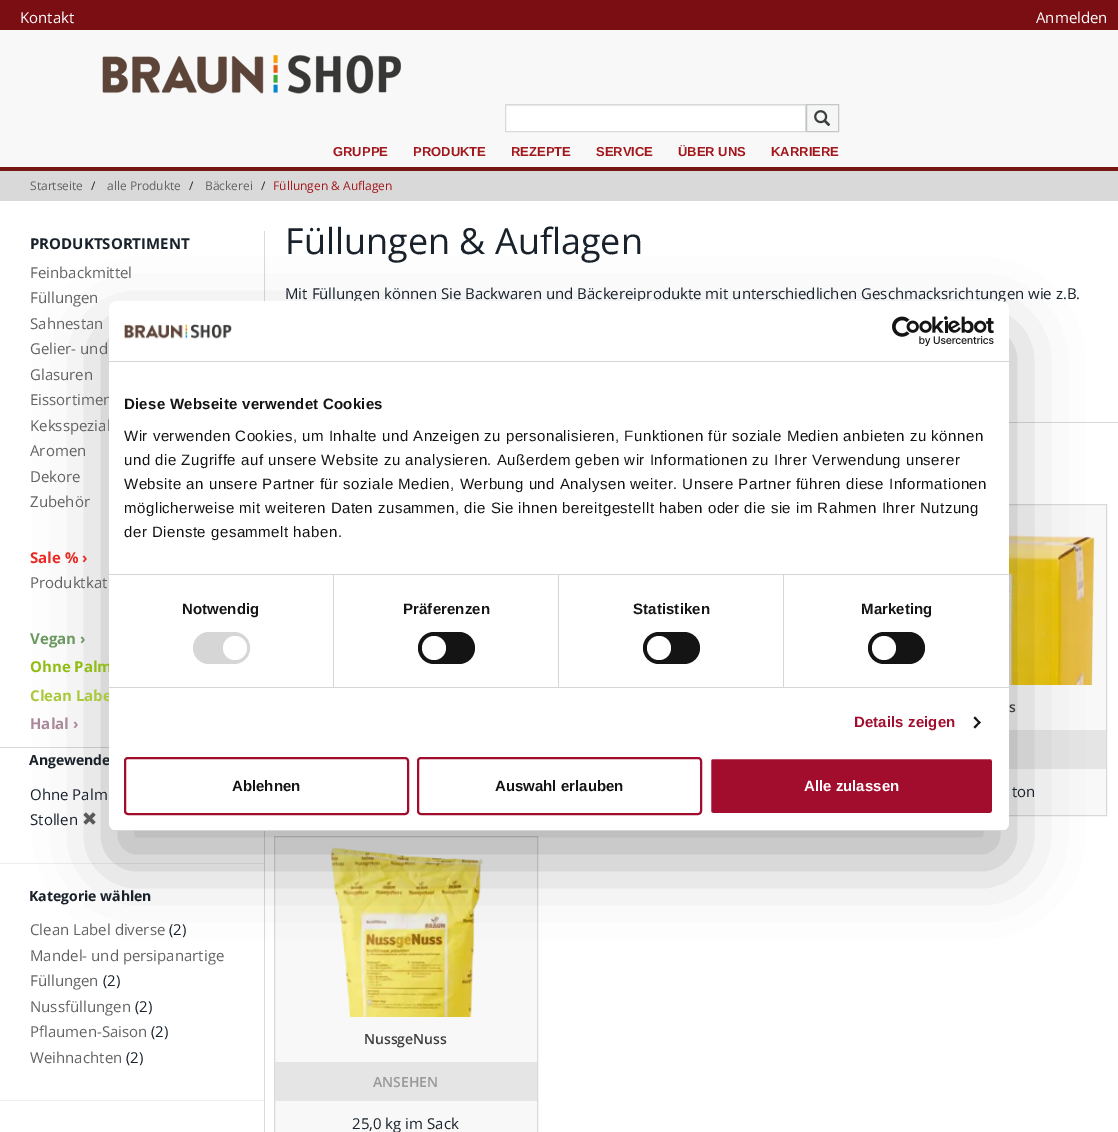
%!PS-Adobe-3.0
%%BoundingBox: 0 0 1118 1132
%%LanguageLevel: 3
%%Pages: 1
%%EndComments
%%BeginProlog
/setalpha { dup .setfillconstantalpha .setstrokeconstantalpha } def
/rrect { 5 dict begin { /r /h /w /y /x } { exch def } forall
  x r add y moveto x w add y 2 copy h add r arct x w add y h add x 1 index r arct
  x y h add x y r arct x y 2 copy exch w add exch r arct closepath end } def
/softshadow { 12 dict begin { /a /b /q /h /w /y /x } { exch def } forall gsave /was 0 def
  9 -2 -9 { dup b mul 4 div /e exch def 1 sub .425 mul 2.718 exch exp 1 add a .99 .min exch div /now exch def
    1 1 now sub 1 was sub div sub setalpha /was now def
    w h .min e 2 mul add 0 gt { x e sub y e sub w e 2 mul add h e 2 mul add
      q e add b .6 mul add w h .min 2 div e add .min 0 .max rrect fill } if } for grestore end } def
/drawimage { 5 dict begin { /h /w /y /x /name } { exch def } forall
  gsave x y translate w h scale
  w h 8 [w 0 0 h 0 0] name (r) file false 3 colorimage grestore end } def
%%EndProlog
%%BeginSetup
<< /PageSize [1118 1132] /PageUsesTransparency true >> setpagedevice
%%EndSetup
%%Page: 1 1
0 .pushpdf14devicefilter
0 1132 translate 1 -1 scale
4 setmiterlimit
0.973 setgray
0 0 1118 1132 rectfill
0.482 0.055 0.075 setrgbcolor
0 0 1118 30 rectfill
0.459 0.094 0.078 setrgbcolor
0 167 1118 4 rectfill
(images/1.raw) 102 55 299 39 drawimage
1 setgray
506 106 299 25 rectfill
0.925 setgray
506 105 299 1 rectfill
0.851 setgray
505.5 104.5 300 27 rectstroke
0.961 0.965 0.965 setrgbcolor
newpath 806.5 104.5 moveto 838.5 104.5 lineto 838.5 131.5 lineto 806.5 131.5 lineto closepath gsave fill grestore
0.776 setgray
stroke
(images/2.raw) 814 110 17 17 drawimage
0.851 setgray
0 171 1118 30 rectfill
1 setgray
0 201 1118 931 rectfill
0.851 setgray
264 231 1 70 rectfill
0 747 109 1 rectfill
264 831 1 301 rectfill
(images/3.raw) 83 812 13 13 drawimage
0.933 setgray
0 863 264 1 rectfill
0 1100 264 1 rectfill
0.851 setgray
1009 422 109 1 rectfill
0.973 setgray
1009 505 97 310 rectfill
0.851 setgray
842.5 504.5 264 311 rectstroke
(images/4.raw) 1009 535 86 150 drawimage
0.902 0.898 0.898 setrgbcolor
1009 730 97 39 rectfill
0.973 setgray
newpath 274.5 836.5 moveto 537.5 836.5 lineto 537.5 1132.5 lineto 274.5 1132.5 lineto closepath gsave fill grestore
0.851 setgray
stroke
(images/5.raw) 330 847 153 170 drawimage
0.902 0.898 0.898 setrgbcolor
275 1062 262 39 rectfill
0 setgray
109 333 900 530 8 34 0.3 softshadow
/OpenSans-Regular [15 0 0 -15 0 0] selectfont
1 setgray
20 23 moveto (Kontakt) show
1036 23 moveto (Anmelden) show
/LiberationSans-Bold [13 0 0 -13 0 0] selectfont
0.635 0.09 0.106 setrgbcolor
333 156 moveto (GRUPPE) show
413 156 moveto (PRODUKTE) show
511 156 moveto (REZEPTE) show
596 156 moveto (SERVICE) show
678 156 moveto (ÜBER UNS) show
771 156 moveto (KARRIERE) show
/OpenSans-Regular [12 0 0 -12 0 0] selectfont
0.384 setgray
30 190 moveto (Startseite) show
0.098 0.129 0.169 setrgbcolor
91 190 moveto (/) show
0.384 setgray
107 190 moveto (alle Produkte) show
0.098 0.129 0.169 setrgbcolor
189 190 moveto (/) show
0.384 setgray
205 190 moveto (Bäckerei) show
0.098 0.129 0.169 setrgbcolor
261 190 moveto (/) show
0.635 0.09 0.106 setrgbcolor
273 190 moveto (Füllungen & Auflagen) show
/OpenSans-Bold [15 0 0 -15 0 0] selectfont
0.098 0.129 0.169 setrgbcolor
30 249 moveto (PRODUKTSORTIMENT) show
/OpenSans-Regular [15 0 0 -15 0 0] selectfont
0.384 setgray
30 278 moveto (Feinbackmittel) show
30 303 moveto (Füllungen) show
30 329 moveto (Sahnestan) show
30 354 moveto (Gelier- und) show
30 380 moveto (Glasuren) show
30 405 moveto (Eissortimen) show
30 431 moveto (Keksspezial) show
30 456 moveto (Aromen) show
30 482 moveto (Dekore) show
30 507 moveto (Zubehör) show
/OpenSans-Bold [15 0 0 -15 0 0] selectfont
0.91 0.173 0.145 setrgbcolor
30 563 moveto (Sale % ›) show
/OpenSans-Regular [15 0 0 -15 0 0] selectfont
0.384 setgray
30 588 moveto (Produktkat) show
/OpenSans-Bold [15 0 0 -15 0 0] selectfont
0.412 0.6 0.369 setrgbcolor
30 644 moveto (Vegan ›) show
0.565 0.737 0.075 setrgbcolor
30 672 moveto (Ohne Palm) show
0.667 0.784 0.235 setrgbcolor
30 701 moveto (Clean Labe) show
0.667 0.533 0.6 setrgbcolor
30 729 moveto (Halal ›) show
/OpenSans-Bold [14 0 0 -14 0 0] selectfont
0.098 0.129 0.169 setrgbcolor
29 765 moveto (Angewende) show
/OpenSans-Regular [15 0 0 -15 0 0] selectfont
30 800 moveto (Ohne Palm) show
30 825 moveto (Stollen) show
/OpenSans-Bold [14 0 0 -14 0 0] selectfont
29 901 moveto (Kategorie wählen) show
/OpenSans-Regular [15 0 0 -15 0 0] selectfont
0.384 setgray
30 935 moveto (Clean Label diverse) show
0.098 0.129 0.169 setrgbcolor
169 935 moveto (\(2\)) show
0.384 setgray
30 961 moveto (Mandel- und persipanartige) show
30 986 moveto (Füllungen) show
0.098 0.129 0.169 setrgbcolor
103 986 moveto (\(2\)) show
0.384 setgray
30 1012 moveto (Nussfüllungen) show
0.098 0.129 0.169 setrgbcolor
135 1012 moveto (\(2\)) show
0.384 setgray
30 1037 moveto (Pflaumen-Saison) show
0.098 0.129 0.169 setrgbcolor
151 1037 moveto (\(2\)) show
0.384 setgray
30 1063 moveto (Weihnachten) show
0.098 0.129 0.169 setrgbcolor
126 1063 moveto (\(2\)) show
/OpenSans-Regular [36 0 0 -36 0 0] selectfont
285 254 moveto (Füllungen & Auflagen) show
/OpenSans-Regular [15 0 0 -15 0 0] selectfont
285 299 moveto (Mit Füllungen können Sie Backwaren und Bäckereiprodukte mit unterschiedlichen Geschmacksrichtungen wie z.B.) show
/OpenSans-SemiBold [14 0 0 -14 0 0] selectfont
0.243 0.239 0.251 setrgbcolor
1009 712 moveto (s) show
/OpenSans-Regular [15 0 0 -15 0 0] selectfont
0.098 0.129 0.169 setrgbcolor
1012 797 moveto (ton) show
/OpenSans-SemiBold [14 0 0 -14 0 0] selectfont
0.243 0.239 0.251 setrgbcolor
364 1044 moveto (NussgeNuss) show
0.6 setgray
373 1087 moveto (ANSEHEN) show
/OpenSans-Regular [15 0 0 -15 0 0] selectfont
0.098 0.129 0.169 setrgbcolor
352 1129 moveto (25,0 kg im Sack) show
1 setgray
109 301 900 530 8 rrect fill
0.839 setgray
109 361 900 1 rectfill
(images/6.raw) 124 324 108 15 drawimage
(images/7.raw) 892 316 102 30 drawimage
109 574 900 1 rectfill
/LiberationSans-Bold [15 0 0 -15 0 0] selectfont
0.078 setgray
124 409 moveto 0.25 0 (Diese Webseite verwendet Cookies) ashow
/LiberationSans-Regular [15 0 0 -15 0 0] selectfont
124 441 moveto 0.5 0 (Wir verwenden Cookies, um Inhalte und Anzeigen zu personalisieren, Funktionen für soziale Medien anbieten zu können) ashow
124 465 moveto 0.5 0 (und die Zugriffe auf unsere Website zu analysieren. Außerdem geben wir Informationen zu Ihrer Verwendung unserer) ashow
124 489 moveto 0.5 0 (Website an unsere Partner für soziale Medien, Werbung und Analysen weiter. Unsere Partner führen diese Informationen) ashow
124 513 moveto 0.5 0 (möglicherweise mit weiteren Daten zusammen, die Sie ihnen bereitgestellt haben oder die sie im Rahmen Ihrer Nutzung) ashow
124 537 moveto 0.5 0 (der Dienste gesammelt haben.) ashow
0.839 setgray
109 687 900 1 rectfill
333 575 1 112 rectfill
/LiberationSans-Bold [15 0 0 -15 0 0] selectfont
0.078 setgray
182 614 moveto 0.1 0 (Notwendig) ashow
0.839 setgray
193 632 57 32 16 rrect fill
1 setgray
newpath 235 648 12 0 360 arc closepath fill
0.839 setgray
558 575 1 112 rectfill
0.078 setgray
403 614 moveto 0.1 0 (Präferenzen) ashow
418 632 57 32 16 rrect fill
1 setgray
newpath 434 648 12 0 360 arc closepath fill
0.839 setgray
783 575 1 112 rectfill
0.078 setgray
633 614 moveto 0.1 0 (Statistiken) ashow
643 632 57 32 16 rrect fill
1 setgray
newpath 659 648 12 0 360 arc closepath fill
0.078 setgray
861 614 moveto 0.1 0 (Marketing) ashow
868 632 57 32 16 rrect fill
1 setgray
newpath 884 648 12 0 360 arc closepath fill
0.635 0.051 0.18 setrgbcolor
854 727 moveto 0.1 0 (Details zeigen) ashow
0.078 setgray
newpath 975 716.5 moveto 980.5 722.5 lineto 979.5 724 lineto 973.5 718 lineto closepath fill
newpath 979.5 721 moveto 980.5 722.5 lineto 975 728.5 lineto 973.5 727 lineto closepath fill
gsave
109 301 900 530 8 rrect clip newpath
0.839 setgray
109 830 900 1 rectfill
grestore
0.635 0.051 0.18 setrgbcolor
2 setlinewidth
125 758 283 56 3 rrect stroke
0.078 setgray
232 791 moveto (Ablehnen) show
0.635 0.051 0.18 setrgbcolor
418 758 283 56 3 rrect stroke
0.078 setgray
495 791 moveto (Auswahl erlauben) show
0.635 0.051 0.18 setrgbcolor
710 758 283 56 3 rrect gsave fill grestore
1 setgray
stroke
804 791 moveto (Alle zulassen) show
.poppdf14devicefilter showpage
%%EOF
